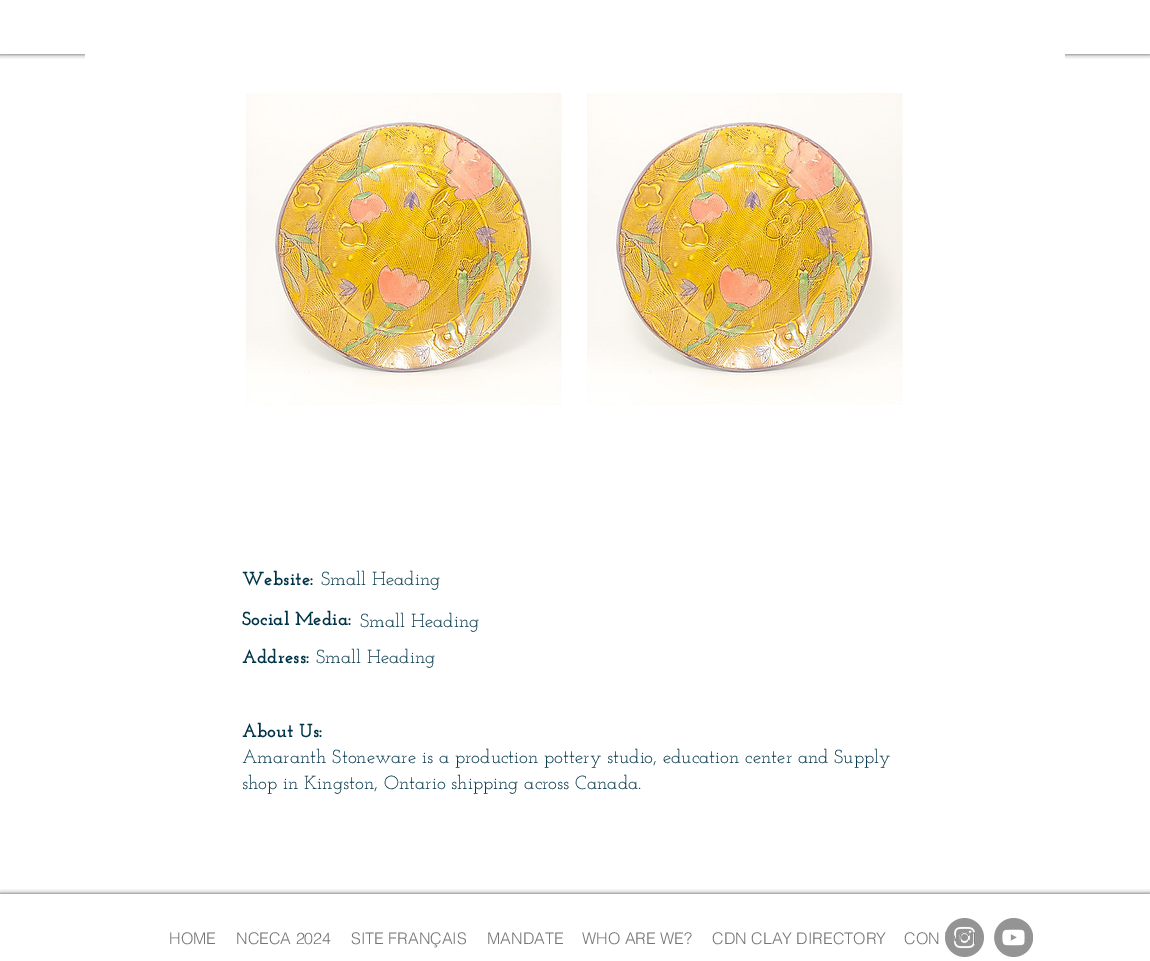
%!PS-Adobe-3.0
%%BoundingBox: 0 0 1150 961
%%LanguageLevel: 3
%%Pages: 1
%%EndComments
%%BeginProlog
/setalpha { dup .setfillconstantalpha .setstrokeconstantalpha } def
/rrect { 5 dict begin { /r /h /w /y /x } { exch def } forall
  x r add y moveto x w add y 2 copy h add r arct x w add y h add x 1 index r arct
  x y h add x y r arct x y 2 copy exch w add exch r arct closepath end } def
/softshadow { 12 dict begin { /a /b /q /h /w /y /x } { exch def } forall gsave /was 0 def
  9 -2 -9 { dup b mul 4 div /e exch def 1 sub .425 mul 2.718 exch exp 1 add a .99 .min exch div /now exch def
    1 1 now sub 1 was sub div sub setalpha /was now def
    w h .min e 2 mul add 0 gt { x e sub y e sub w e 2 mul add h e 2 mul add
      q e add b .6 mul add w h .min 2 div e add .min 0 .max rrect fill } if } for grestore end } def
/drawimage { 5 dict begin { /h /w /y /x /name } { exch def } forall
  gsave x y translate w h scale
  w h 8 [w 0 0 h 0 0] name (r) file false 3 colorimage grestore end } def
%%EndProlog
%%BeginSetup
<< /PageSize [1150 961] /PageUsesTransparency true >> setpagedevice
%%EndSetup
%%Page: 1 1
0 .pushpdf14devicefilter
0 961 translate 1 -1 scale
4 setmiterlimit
1 setgray
0 0 1150 961 rectfill
gsave
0 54 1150 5 rectclip
0 setgray
0 0 1150 54 0 2.5 0.7 softshadow
grestore
85 54 980 5 rectfill
(images/1.raw) 246 93 316 312 drawimage
(images/1.raw) 587 93 316 312 drawimage
gsave
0 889 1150 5 rectclip
0 setgray
0 894 1150 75 0 2.5 0.7 softshadow
grestore
(images/2.raw) 945 918 39 39 drawimage
(images/3.raw) 994 918 39 39 drawimage
/JosefinSlab-Bold [19 0 0 -19 0 0] selectfont
0 0.204 0.282 setrgbcolor
242 585 moveto (Website:) show
/JosefinSlab-Regular [19 0 0 -19 0 0] selectfont
321 585 moveto (Small Heading) show
/JosefinSlab-Bold [19 0 0 -19 0 0] selectfont
242 625 moveto (Social Media:) show
/JosefinSlab-Regular [19 0 0 -19 0 0] selectfont
360 627 moveto (Small Heading) show
/JosefinSlab-Bold [19 0 0 -19 0 0] selectfont
242 663 moveto (Address:) show
/JosefinSlab-Regular [19 0 0 -19 0 0] selectfont
316 663 moveto (Small Heading) show
/JosefinSlab-Bold [19 0 0 -19 0 0] selectfont
242 737 moveto (About Us:) show
/JosefinSlab-Regular [19 0 0 -19 0 0] selectfont
242 763 moveto (Amaranth Stoneware is a production pottery studio, education center and Supply) show
242 789 moveto (shop in Kingston, Ontario shipping across Canada.) show
/helvetica-Light [16 0 0 -16 0 0] selectfont
0.455 0.459 0.459 setrgbcolor
169 944 moveto (HOME) show
236 944 moveto (NCECA 2024) show
351 944 moveto (SITE FRANÇAIS) show
487 944 moveto (MANDATE) show
582 944 moveto (WHO ARE WE?) show
712 944 moveto (CDN CLAY DIRECTORY) show
904 944 moveto (CON) show
.poppdf14devicefilter showpage
%%EOF
